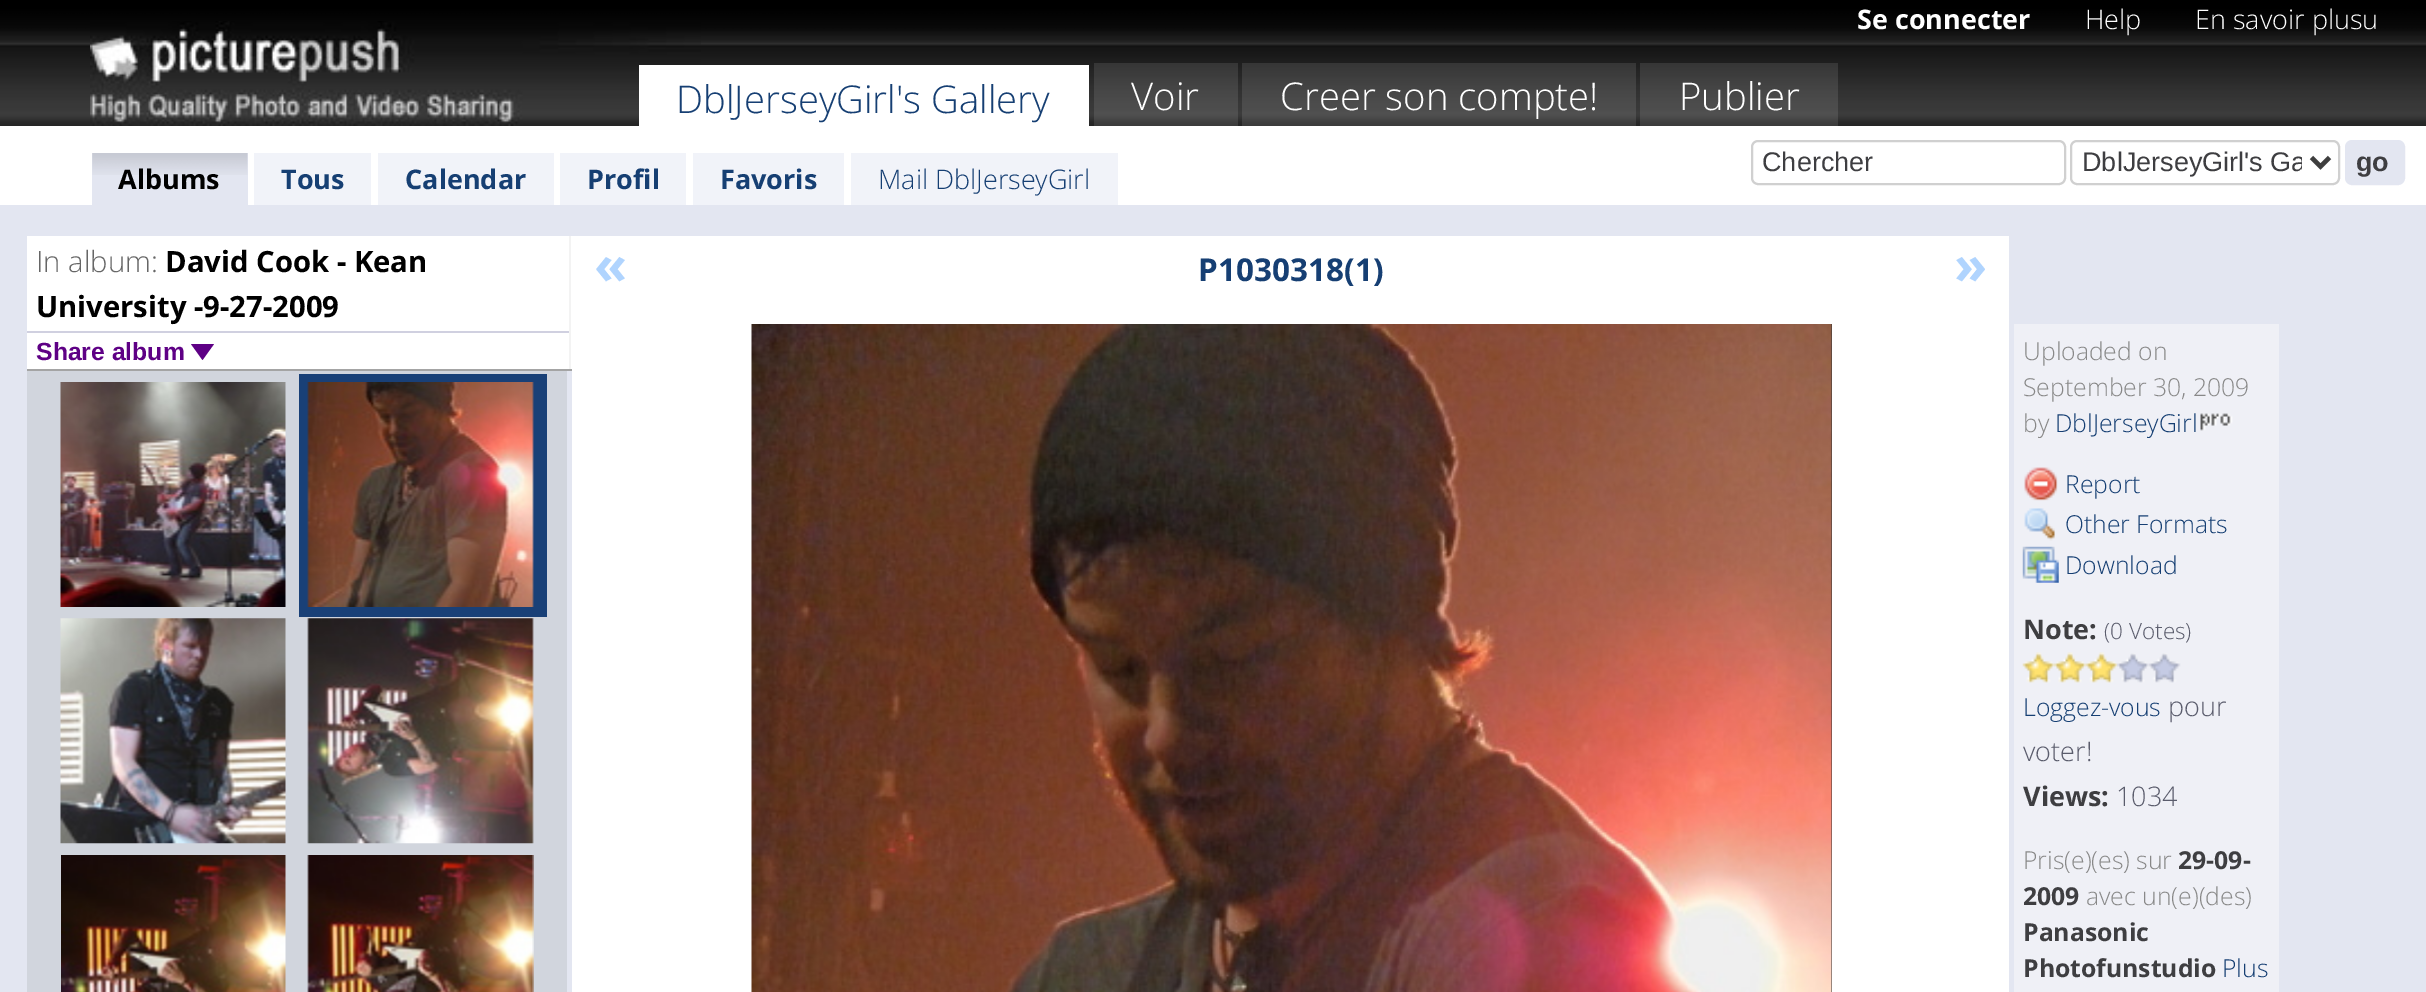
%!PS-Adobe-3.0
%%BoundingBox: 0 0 2426 992
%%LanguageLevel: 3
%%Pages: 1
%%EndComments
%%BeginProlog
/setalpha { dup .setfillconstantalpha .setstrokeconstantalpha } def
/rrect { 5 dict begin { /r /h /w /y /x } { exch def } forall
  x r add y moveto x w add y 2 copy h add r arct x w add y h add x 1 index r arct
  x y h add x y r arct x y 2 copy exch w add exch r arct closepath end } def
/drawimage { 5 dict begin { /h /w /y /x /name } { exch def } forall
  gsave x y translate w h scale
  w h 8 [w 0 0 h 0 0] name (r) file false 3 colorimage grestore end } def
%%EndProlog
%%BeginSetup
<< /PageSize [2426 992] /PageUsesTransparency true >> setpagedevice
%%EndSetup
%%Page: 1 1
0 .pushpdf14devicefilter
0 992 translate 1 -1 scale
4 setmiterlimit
0.89 0.902 0.945 setrgbcolor
0 0 2426 992 rectfill
(images/1.raw) 0 0 2426 126 drawimage
(images/2.raw) 90 21 611 105 drawimage
1 setgray
639 65 450 61 rectfill
0.1 setalpha
1094 63 144 63 rectfill
1242 63 394 63 rectfill
1640 63 198 63 rectfill
1 setalpha
0 126 2426 79 rectfill
0.816 setgray
2 setlinewidth
1752 141 313 43 6 rrect stroke
2071 141 268 43 6 rrect stroke
0.243 setgray
4.5 setlinewidth
newpath 2311.5 157.5 moveto 2320.5 166.5 lineto 2329.5 157.5 lineto stroke
0.89 0.902 0.945 setrgbcolor
2346 141 58 43 6 rrect gsave fill grestore
2 setlinewidth
stroke
92 153 156 52 rectfill
(images/3.raw) 92 153 156 22 drawimage
0.945 0.953 0.976 setrgbcolor
254 153 117 52 rectfill
378 153 176 52 rectfill
560 153 126 52 rectfill
693 153 151 52 rectfill
851 153 267 52 rectfill
1 setgray
27 236 545 133 rectfill
0.953 setgray
569 236 2 135 rectfill
0.643 setgray
27 369 545 2 rectfill
0.816 0.816 0.878 setrgbcolor
27 331 542 2 rectfill
0.369 0 0.522 setrgbcolor
newpath 191 344 moveto 214 344 lineto 202.5 360 lineto closepath fill
0.82 0.835 0.867 setrgbcolor
27 371 540 621 rectfill
(images/4.raw) 60 382 226 225 drawimage
0.098 0.251 0.467 setrgbcolor
299 374 248 243 rectfill
(images/5.raw) 307 382 227 225 drawimage
(images/6.raw) 60 618 226 226 drawimage
(images/7.raw) 307 618 227 226 drawimage
(images/8.raw) 61 855 225 137 drawimage
(images/9.raw) 307 855 227 137 drawimage
1 setgray
572 236 1437 756 rectfill
0.2 setgray
1831 324 1 668 rectfill
(images/10.raw) 751 324 1081 668 drawimage
0.937 0.941 0.965 setrgbcolor
2014 324 265 668 rectfill
(images/11.raw) 2200 413 33 18 drawimage
(images/12.raw) 2024 467 34 34 drawimage
(images/13.raw) 2024 508 31 33 drawimage
(images/14.raw) 2022 546 37 37 drawimage
(images/15.raw) 2022 652 33 31 drawimage
(images/16.raw) 2054 652 32 31 drawimage
(images/17.raw) 2085 652 33 31 drawimage
(images/18.raw) 2117 653 32 30 drawimage
(images/19.raw) 2149 653 32 30 drawimage
/OpenSans-Light [38.25 0 0 -38.25 0 0] selectfont
0.086 0.247 0.451 setrgbcolor
676 113 moveto (DblJerseyGirl's Gallery) show
1 setgray
1131 110 moveto (Voir) show
1280 110 moveto (Creer son compte!) show
1679 110 moveto (Publier) show
/OpenSans-Bold [27 0 0 -27 0 0] selectfont
1857 29 moveto (Se connecter) show
/OpenSans-Light [27 0 0 -27 0 0] selectfont
2085 29 moveto (Help) show
2195 29 moveto (En savoir plusu) show
/LiberationSans-Regular [27 0 0 -27 0 0] selectfont
0.243 0.243 0.255 setrgbcolor
1762 171 moveto (Chercher) show
gsave
2081 144 221 36 rectclip
2082 171 moveto (DblJerseyGirl's Ga) show
grestore
/LiberationSans-Bold [27 0 0 -27 0 0] selectfont
2356 171 moveto (go) show
/OpenSans-Bold [27 0 0 -27 0 0] selectfont
0 setgray
118 189 moveto (Albums) show
0.086 0.247 0.451 setrgbcolor
281 189 moveto (Tous) show
405 189 moveto (Calendar) show
587 189 moveto (Profil) show
720 189 moveto (Favoris) show
/OpenSans-Light [27 0 0 -27 0 0] selectfont
878 189 moveto (Mail DblJerseyGirl) show
/OpenSans-Light [29.25 0 0 -29.25 0 0] selectfont
0.4 setgray
36 272 moveto (In album:) show
/OpenSans-Bold [29.25 0 0 -29.25 0 0] selectfont
0 setgray
165 272 moveto (David Cook - Kean) show
36 317 moveto (University -9-27-2009) show
/LiberationSans-Bold [24.75 0 0 -24.75 0 0] selectfont
0.369 0 0.522 setrgbcolor
36 360 moveto (Share album) show
/OpenSans-Bold [54 0 0 -54 0 0] selectfont
0.69 0.831 0.996 setrgbcolor
594 284 moveto («) show
/OpenSans-Bold [31.5 0 0 -31.5 0 0] selectfont
0.086 0.247 0.451 setrgbcolor
1198 281 moveto (P1030318\(1\)) show
/OpenSans-Bold [54 0 0 -54 0 0] selectfont
0.69 0.831 0.996 setrgbcolor
1954 284 moveto (») show
/OpenSans-Light [24.75 0 0 -24.75 0 0] selectfont
0.533 setgray
2023 360 moveto (Uploaded on) show
2023 396 moveto (September 30, 2009) show
2023 432 moveto (by) show
0.086 0.247 0.451 setrgbcolor
2055 432 moveto (DblJerseyGirl) show
2065 493 moveto (Report) show
2065 533 moveto (Other Formats) show
2065 574 moveto (Download) show
/OpenSans-Bold [27 0 0 -27 0 0] selectfont
0.243 0.243 0.255 setrgbcolor
2023 639 moveto (Note:) show
/OpenSans-Light [22.5 0 0 -22.5 0 0] selectfont
0.353 0.361 0.424 setrgbcolor
2104 639 moveto (\(0 Votes\)) show
/OpenSans-Light [24.75 0 0 -24.75 0 0] selectfont
0.086 0.247 0.451 setrgbcolor
2023 716 moveto (Loggez-vous) show
/OpenSans-Light [27 0 0 -27 0 0] selectfont
0.353 0.361 0.424 setrgbcolor
2168 716 moveto (pour) show
2023 761 moveto (voter!) show
/OpenSans-Bold [27 0 0 -27 0 0] selectfont
0.243 0.243 0.255 setrgbcolor
2023 806 moveto (Views:) show
/OpenSans-Light [27 0 0 -27 0 0] selectfont
0.353 0.361 0.424 setrgbcolor
2116 806 moveto (1034) show
/OpenSans-Light [24.75 0 0 -24.75 0 0] selectfont
0.533 setgray
2023 869 moveto (Pris\(e\)\(es\) sur) show
/OpenSans-Bold [24.75 0 0 -24.75 0 0] selectfont
0.243 0.243 0.255 setrgbcolor
2178 869 moveto (29-09-) show
2023 905 moveto (2009) show
/OpenSans-Light [24.75 0 0 -24.75 0 0] selectfont
0.533 setgray
2086 905 moveto (avec un\(e\)\(des\)) show
/OpenSans-Bold [24.75 0 0 -24.75 0 0] selectfont
0.243 0.243 0.255 setrgbcolor
2023 941 moveto (Panasonic) show
2023 977 moveto (Photofunstudio) show
/OpenSans-Light [24.75 0 0 -24.75 0 0] selectfont
0.086 0.247 0.451 setrgbcolor
2222 977 moveto (Plus) show
.poppdf14devicefilter showpage
%%EOF
